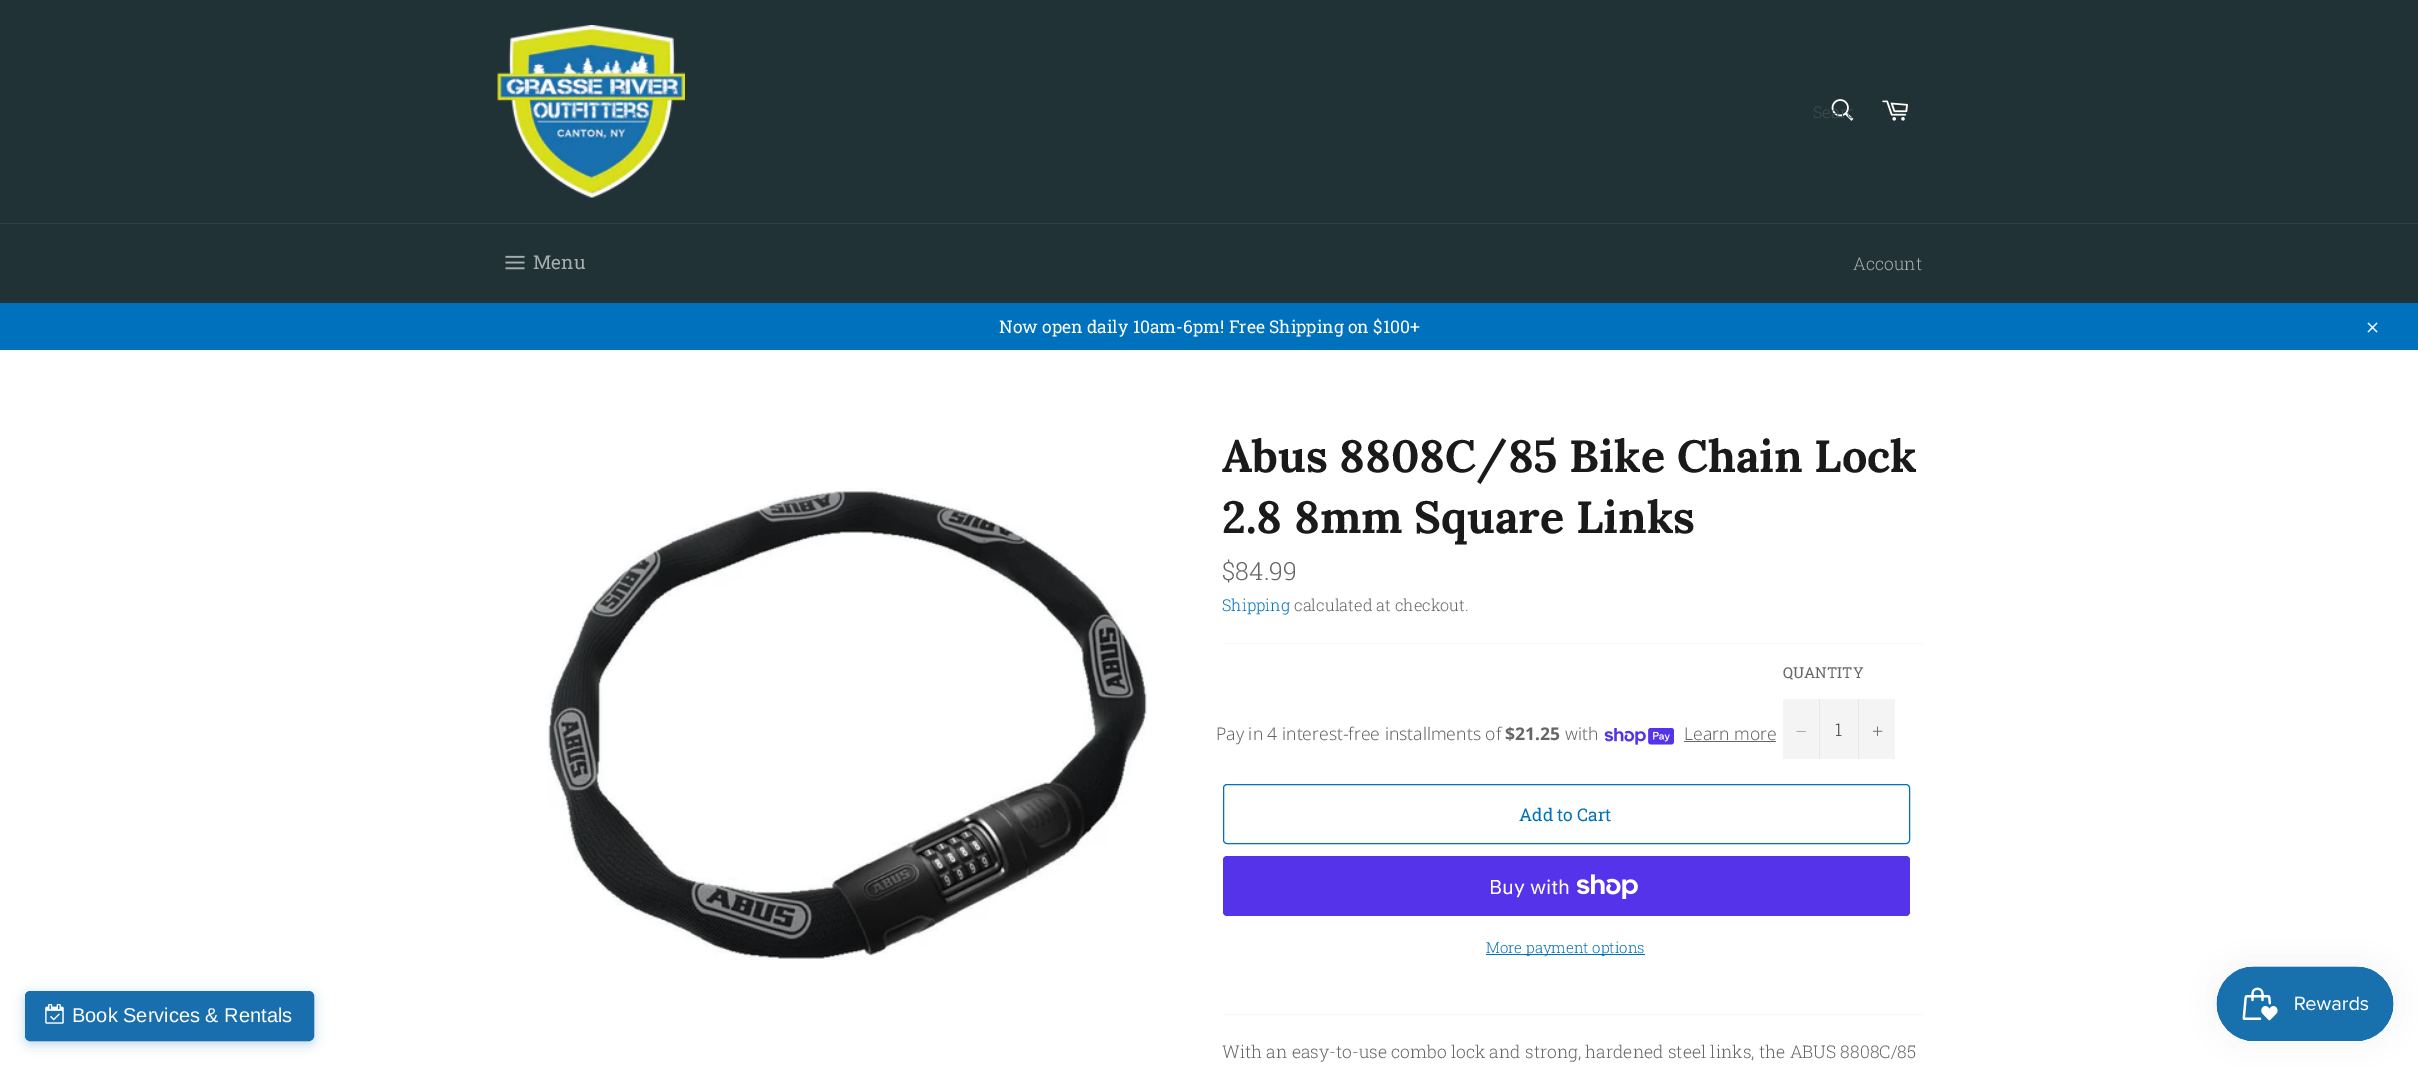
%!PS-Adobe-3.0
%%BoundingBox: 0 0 2418 1066
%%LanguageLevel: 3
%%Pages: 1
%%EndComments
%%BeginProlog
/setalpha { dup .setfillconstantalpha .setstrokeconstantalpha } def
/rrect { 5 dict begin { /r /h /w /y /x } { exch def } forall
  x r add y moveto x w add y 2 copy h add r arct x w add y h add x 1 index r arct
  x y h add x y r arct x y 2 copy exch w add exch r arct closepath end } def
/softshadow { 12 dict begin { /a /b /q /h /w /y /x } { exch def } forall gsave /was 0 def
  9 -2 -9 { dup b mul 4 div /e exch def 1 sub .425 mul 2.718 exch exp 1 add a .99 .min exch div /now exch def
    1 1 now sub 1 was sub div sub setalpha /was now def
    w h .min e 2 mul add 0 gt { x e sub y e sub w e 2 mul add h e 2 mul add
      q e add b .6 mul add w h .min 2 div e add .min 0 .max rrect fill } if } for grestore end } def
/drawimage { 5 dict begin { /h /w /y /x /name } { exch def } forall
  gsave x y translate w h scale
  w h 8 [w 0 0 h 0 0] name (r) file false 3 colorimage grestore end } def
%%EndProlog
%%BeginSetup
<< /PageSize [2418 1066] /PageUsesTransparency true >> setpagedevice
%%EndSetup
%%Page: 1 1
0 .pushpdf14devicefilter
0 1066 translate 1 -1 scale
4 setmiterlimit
0.129 0.196 0.212 setrgbcolor
0 0 2418 1066 rectfill
(images/1.raw) 497 25 188 173 drawimage
(images/2.raw) 1831 99 23 22 drawimage
(images/3.raw) 1882 100 26 21 drawimage
0.169 0.255 0.275 setrgbcolor
0 223 2418 1 rectfill
(images/4.raw) 505 255 20 15 drawimage
0 0.443 0.737 setrgbcolor
0 303 2418 47 rectfill
(images/5.raw) 2367 322 11 11 drawimage
1 setgray
0 350 2418 716 rectfill
0.098 0.435 0.678 setrgbcolor
25 994 289 50 5 6 0.3 softshadow
25.5 991.5 288 49 4.5 rrect gsave fill grestore
stroke
(images/6.raw) 45 1004 19 20 drawimage
(images/7.raw) 547 488 601 472 drawimage
0.969 setgray
1223 643 700 1 rectfill
(images/8.raw) 1604 728 70 17 drawimage
0.4 setgray
1684 741 92 1 rectfill
0.957 setgray
1783 699 112 60 rectfill
0.906 setgray
1819 699 1 60 rectfill
0.4 setgray
newpath 1806 731 moveto 1806 731.5 lineto 1796.5 731.5 lineto 1796.5 731 lineto closepath eofill
0.906 setgray
1858 699 1 60 rectfill
(images/9.raw) 1873 726 10 10 drawimage
0 0.443 0.737 setrgbcolor
1223.5 784.5 686 59 3.5 rrect stroke
0.329 0.2 0.922 setrgbcolor
1223 856 687 60 4 rrect fill
(images/10.raw) 1576 874 62 25 drawimage
0 0.443 0.737 setrgbcolor
1486 954 159 1 rectfill
0.969 setgray
1223 1014 700 1 rectfill
0 setgray
2216 966 178 75 37.5 15.5 0.05 softshadow
(images/11.raw) 2216 966 178 75 drawimage
gsave
1813 100 40 23 rectclip
/RobotoSlab-Light [16.25 0 0 -16.25 0 0] selectfont
0.247 0.306 0.322 setrgbcolor
1813 118 moveto (Searc) show
grestore
/RobotoSlab-Regular [19 0 0 -19 0 0] selectfont
0.651 0.678 0.686 setrgbcolor
533 269 moveto (Menu) show
/RobotoSlab-Light [17.5 0 0 -17.5 0 0] selectfont
1853 270 moveto (Account) show
/RobotoSlab-Regular [17.5 0 0 -17.5 0 0] selectfont
1 setgray
999 333 moveto (Now open daily 10am-6pm! Free Shipping on $100+) show
/LiberationSans-Regular [20 0 0 -20 0 0] selectfont
72 1022 moveto (Book Services & Rentals) show
/Lora-Bold [45 0 0 -45 0 0] selectfont
0.102 setgray
1222 472 moveto (Abus 8808C/85 Bike Chain Lock) show
1222 533 moveto (2.8 8mm Square Links) show
/RobotoSlab-Light [25 0 0 -25 0 0] selectfont
0.4 setgray
1222 580 moveto ($84.99) show
/RobotoSlab-Light [16.25 0 0 -16.25 0 0] selectfont
0 0.443 0.737 setrgbcolor
1222 611 moveto (Shipping) show
0.4 setgray
1294 611 moveto (calculated at checkout.) show
/NotoSans-Light [17.5 0 0 -17.5 0 0] selectfont
1216 740 moveto (Pay in 4 interest-free installments of) show
/NotoSans-Bold [17.5 0 0 -17.5 0 0] selectfont
1505 740 moveto ($21.25) show
/NotoSans-Light [17.5 0 0 -17.5 0 0] selectfont
1565 740 moveto (with) show
1684 740 moveto (Learn more) show
/RobotoSlab-Regular [15 0 0 -15 0 0] selectfont
1783 678 moveto (QUANTITY) show
/RobotoSlab-Light [17.5 0 0 -17.5 0 0] selectfont
0.2 setgray
1835 736 moveto (1) show
/RobotoSlab-Regular [17.5 0 0 -17.5 0 0] selectfont
0 0.443 0.737 setrgbcolor
1519 821 moveto (Add to Cart) show
/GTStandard-Regular [20 0 0 -20 0 0] selectfont
1 setgray
1489 894 moveto (Buy with) show
/RobotoSlab-Light [15 0 0 -15 0 0] selectfont
0 0.443 0.737 setrgbcolor
1486 953 moveto (More payment options) show
/RobotoSlab-Light [17.5 0 0 -17.5 0 0] selectfont
0.4 setgray
1222 1058 moveto (With an easy-to-use combo lock and strong, hardened steel links, the ABUS 8808C/85) show
.poppdf14devicefilter showpage
%%EOF
